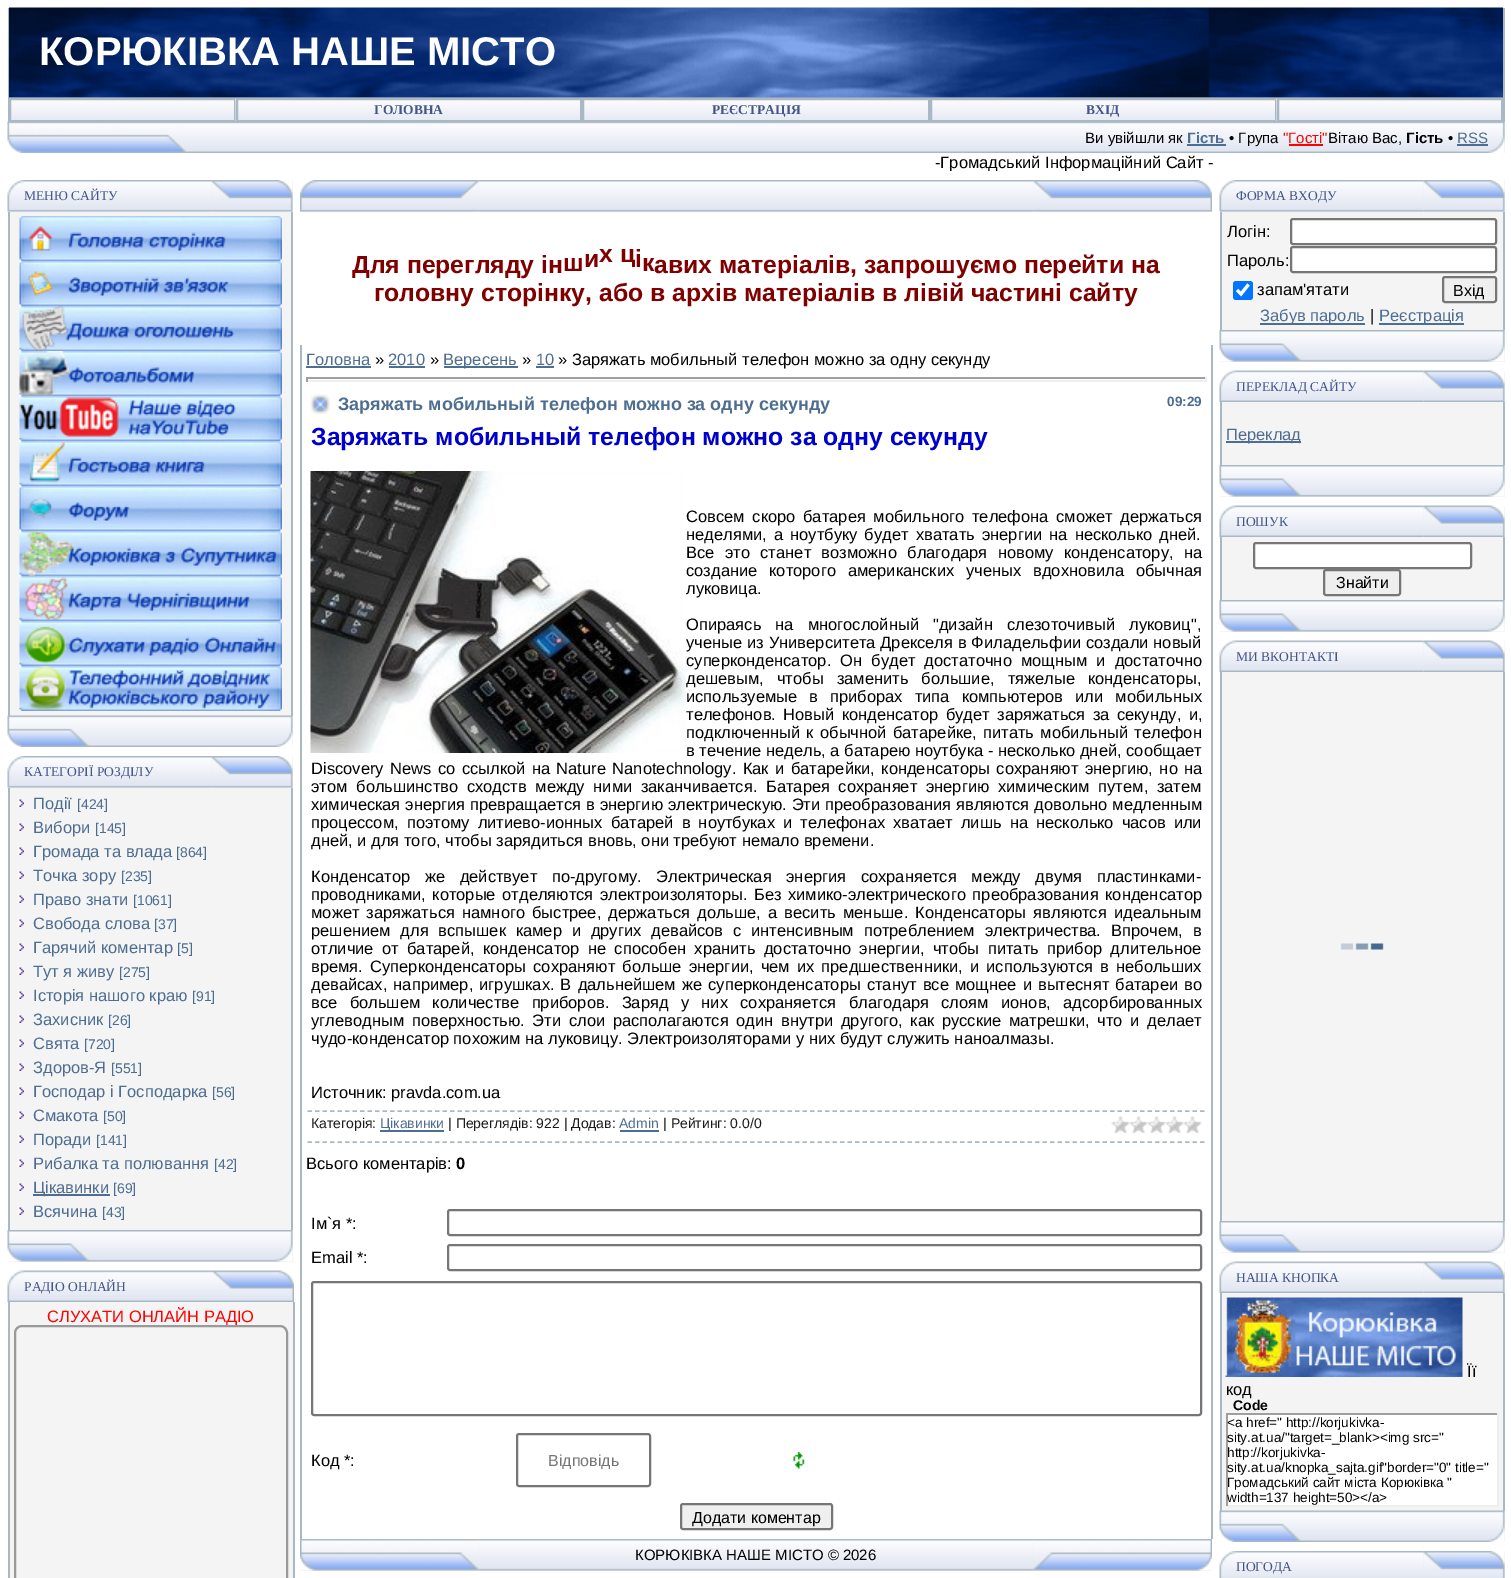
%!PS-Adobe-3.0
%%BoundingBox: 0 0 1511 1578
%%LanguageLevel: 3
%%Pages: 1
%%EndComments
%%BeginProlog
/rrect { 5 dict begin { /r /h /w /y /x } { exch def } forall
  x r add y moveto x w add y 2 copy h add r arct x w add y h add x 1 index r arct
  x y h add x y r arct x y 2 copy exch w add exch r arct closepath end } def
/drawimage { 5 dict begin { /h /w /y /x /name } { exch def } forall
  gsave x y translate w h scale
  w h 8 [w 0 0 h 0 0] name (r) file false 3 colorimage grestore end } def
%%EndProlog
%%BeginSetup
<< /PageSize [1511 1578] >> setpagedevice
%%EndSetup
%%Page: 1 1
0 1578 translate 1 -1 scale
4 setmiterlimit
1 setgray
0 0 1511 1578 rectfill
0.663 0.722 0.761 setrgbcolor
1503 8 2 114 rectfill
8 8 2 90 rectfill
(images/1.raw) 9 7 1494 91 drawimage
8 98 1 24 rectfill
(images/2.raw) 9 97 227 23 drawimage
2 setlinewidth
10 99 225 22 rectstroke
(images/3.raw) 235 97 347 25 drawimage
237 99 344 22 rectstroke
(images/4.raw) 582 97 348 23 drawimage
583 99 346 22 rectstroke
(images/5.raw) 930 97 347 23 drawimage
931 99 345 22 rectstroke
(images/6.raw) 1276 97 227 25 drawimage
1278 99 224 22 rectstroke
(images/7.raw) 7 121 179 32 drawimage
(images/8.raw) 186 121 1302 32 drawimage
0.302 0.427 0.569 setrgbcolor
1187 144 39 2 rectfill
1 0 0 setrgbcolor
1289 144 34 2 rectfill
0.302 0.427 0.569 setrgbcolor
1457 144 31 2 rectfill
0.894 0.91 0.953 setrgbcolor
1504 122 1 31 rectfill
(images/9.raw) 1488 122 17 31 drawimage
0.914 0.925 0.961 setrgbcolor
8 180 285 32 rectfill
(images/10.raw) 7 180 17 32 drawimage
(images/11.raw) 24 180 188 32 drawimage
(images/12.raw) 211 180 82 32 drawimage
0.957 setgray
10 212 281 504 rectfill
0.663 0.722 0.761 setrgbcolor
291 212 2 504 rectfill
8 212 2 504 rectfill
(images/13.raw) 19 216 263 45 drawimage
(images/14.raw) 19 261 263 45 drawimage
(images/15.raw) 19 306 263 45 drawimage
(images/16.raw) 19 351 263 45 drawimage
(images/17.raw) 19 396 263 45 drawimage
(images/18.raw) 19 441 263 45 drawimage
(images/19.raw) 19 486 263 45 drawimage
(images/20.raw) 19 531 263 45 drawimage
(images/21.raw) 19 576 263 45 drawimage
(images/22.raw) 19 621 263 45 drawimage
(images/23.raw) 19 666 263 45 drawimage
0.914 0.925 0.961 setrgbcolor
292 716 1 31 rectfill
(images/24.raw) 7 715 286 32 drawimage
8 756 285 32 rectfill
(images/10.raw) 7 756 17 32 drawimage
(images/11.raw) 24 756 188 32 drawimage
(images/12.raw) 211 756 82 32 drawimage
0.957 setgray
10 788 281 442 rectfill
0.663 0.722 0.761 setrgbcolor
291 788 2 442 rectfill
8 788 2 442 rectfill
(images/25.raw) 18 799 6 8 drawimage
(images/25.raw) 18 823 6 8 drawimage
(images/25.raw) 18 847 6 8 drawimage
(images/25.raw) 18 871 6 8 drawimage
(images/25.raw) 18 895 6 8 drawimage
(images/25.raw) 18 919 6 8 drawimage
(images/25.raw) 18 943 6 8 drawimage
(images/25.raw) 18 967 6 8 drawimage
(images/25.raw) 18 991 6 8 drawimage
(images/25.raw) 18 1015 6 8 drawimage
(images/25.raw) 18 1039 6 8 drawimage
(images/25.raw) 18 1063 6 8 drawimage
(images/25.raw) 18 1087 6 8 drawimage
(images/25.raw) 18 1111 6 8 drawimage
(images/25.raw) 18 1135 6 8 drawimage
(images/25.raw) 18 1159 6 8 drawimage
(images/25.raw) 18 1183 6 8 drawimage
0.302 0.427 0.569 setrgbcolor
33 1194 77 2 rectfill
(images/25.raw) 18 1207 6 8 drawimage
0.914 0.925 0.961 setrgbcolor
8 1230 285 32 rectfill
(images/26.raw) 7 1230 286 32 drawimage
(images/27.raw) 7 1270 17 32 drawimage
(images/28.raw) 24 1270 189 32 drawimage
(images/29.raw) 213 1270 81 32 drawimage
0.957 setgray
10 1302 283 276 rectfill
0.663 0.722 0.761 setrgbcolor
293 1302 2 276 rectfill
8 1302 2 276 rectfill
0.914 0.925 0.961 setrgbcolor
300 180 734 32 rectfill
(images/31.raw) 478 180 556 32 drawimage
(images/30.raw) 300 180 179 32 drawimage
1034 211 178 1 rectfill
(images/32.raw) 1033 180 179 32 drawimage
0.663 0.722 0.761 setrgbcolor
1211 345 2 1194 rectfill
300 345 2 1194 rectfill
0.302 0.427 0.569 setrgbcolor
306 366 65 2 rectfill
389 366 36 2 rectfill
444 366 74 2 rectfill
536 366 18 2 rectfill
0.624 setgray
306 377 900 2 rectfill
0.933 setgray
1205 377 2 5 rectfill
306 380 900 2 rectfill
0.624 setgray
306 377 2 5 rectfill
(images/33.raw) 310 394 20 20 drawimage
(images/34.raw) 310 471 376 282 drawimage
0.663 0.722 0.761 setrgbcolor
1.5 setlinewidth
[4.5 3] 0 setdash
newpath 307.5 1111 moveto 1204.5 1111 lineto stroke
newpath 307.5 1142 moveto 1204.5 1142 lineto stroke
0.302 0.427 0.569 setrgbcolor
380 1130 64 2 rectfill
620 1130 39 2 rectfill
(images/35.raw) 1111 1116 91 18 drawimage
0.463 setgray
2 setlinewidth
[] 0 setdash
448 1210 753 25 2 rrect stroke
448 1245 753 25 2 rrect stroke
312 1282 889 133 2 rrect stroke
517 1434 133 52 2 rrect stroke
(images/36.raw) 793 1452 12 17 drawimage
0.937 setgray
681 1504 151 25 2 rrect gsave fill grestore
0.463 setgray
stroke
0.914 0.925 0.961 setrgbcolor
300 1539 734 32 rectfill
(images/31.raw) 478 1539 556 32 drawimage
(images/37.raw) 300 1539 179 32 drawimage
1034 1570 178 1 rectfill
(images/38.raw) 1033 1539 179 32 drawimage
1220 180 285 32 rectfill
(images/10.raw) 1219 180 17 32 drawimage
(images/11.raw) 1236 180 188 32 drawimage
(images/39.raw) 1423 180 82 32 drawimage
0.957 setgray
1222 212 281 118 rectfill
0.663 0.722 0.761 setrgbcolor
1503 212 2 118 rectfill
1220 212 2 118 rectfill
1 setgray
1291 219 205 25 2 rrect gsave fill grestore
0.463 setgray
stroke
1 setgray
1291 247 205 25 2 rrect gsave fill grestore
0.463 setgray
stroke
0 0.459 1 setrgbcolor
1233 281 20 19 3 rrect fill
1 setgray
3.1 setlinewidth
newpath 1237 290 moveto 1241 294 lineto 1248.5 284.5 lineto stroke
0.937 setgray
1443 277 53 25 2 rrect gsave fill grestore
0.463 setgray
2 setlinewidth
stroke
0.302 0.427 0.569 setrgbcolor
1260 323 105 2 rectfill
1379 323 85 2 rectfill
0.914 0.925 0.961 setrgbcolor
1220 330 285 32 rectfill
(images/26.raw) 1219 330 286 32 drawimage
1423 371 82 31 rectfill
(images/27.raw) 1219 370 17 32 drawimage
(images/40.raw) 1236 370 188 32 drawimage
(images/41.raw) 1423 370 82 32 drawimage
0.957 setgray
1222 402 281 63 rectfill
0.663 0.722 0.761 setrgbcolor
1503 402 2 63 rectfill
1220 402 2 63 rectfill
0.302 0.427 0.569 setrgbcolor
1226 441 75 2 rectfill
0.914 0.925 0.961 setrgbcolor
1220 465 285 32 rectfill
(images/26.raw) 1219 465 286 32 drawimage
1423 506 82 31 rectfill
(images/27.raw) 1219 505 17 32 drawimage
(images/40.raw) 1236 505 188 32 drawimage
(images/41.raw) 1423 505 82 32 drawimage
0.957 setgray
1222 537 281 63 rectfill
0.663 0.722 0.761 setrgbcolor
1503 537 2 63 rectfill
1220 537 2 63 rectfill
1 setgray
1254 543 217 25 2 rrect gsave fill grestore
0.463 setgray
stroke
0.937 setgray
1324 570 76 25 2 rrect gsave fill grestore
0.463 setgray
stroke
0.914 0.925 0.961 setrgbcolor
1220 600 285 32 rectfill
(images/26.raw) 1219 600 286 32 drawimage
1423 641 82 31 rectfill
(images/27.raw) 1219 640 17 32 drawimage
(images/40.raw) 1236 640 188 32 drawimage
(images/41.raw) 1423 640 82 32 drawimage
0.957 setgray
1222 672 281 549 rectfill
0.663 0.722 0.761 setrgbcolor
1503 672 2 549 rectfill
1220 672 2 549 rectfill
(images/42.raw) 1340 943 44 7 drawimage
0.914 0.925 0.961 setrgbcolor
1220 1221 285 32 rectfill
(images/26.raw) 1219 1221 286 32 drawimage
1423 1262 82 31 rectfill
(images/27.raw) 1219 1261 17 32 drawimage
(images/40.raw) 1236 1261 188 32 drawimage
(images/41.raw) 1423 1261 82 32 drawimage
0.957 setgray
1222 1293 281 218 rectfill
0.663 0.722 0.761 setrgbcolor
1503 1293 2 218 rectfill
1220 1293 2 218 rectfill
(images/43.raw) 1225 1297 238 80 drawimage
1 setgray
1228 1415 269 90 rectfill
0.624 setgray
1226 1413 273 2 rectfill
0.933 setgray
1497 1413 2 93 rectfill
1226 1505 273 2 rectfill
0.624 setgray
1226 1413 2 93 rectfill
0.914 0.925 0.961 setrgbcolor
1504 1511 1 31 rectfill
(images/24.raw) 1219 1510 286 32 drawimage
1423 1551 82 27 rectfill
(images/44.raw) 1219 1551 17 27 drawimage
(images/45.raw) 1236 1551 188 27 drawimage
(images/46.raw) 1423 1551 82 27 drawimage
/LiberationSans-Bold [40 0 0 -40 0 0] selectfont
1 setgray
39 65 moveto (КОРЮКІВКА НАШЕ МІСТО) show
/LiberationSerif-Bold [13.5 0 0 -13.5 0 0] selectfont
0.267 0.333 0.533 setrgbcolor
374 114 moveto (ГОЛОВНА) show
712 114 moveto (РЕЄСТРАЦІЯ) show
1086 114 moveto (ВХІД) show
/LiberationSans-Regular [15 0 0 -15 0 0] selectfont
0 setgray
1085 143 moveto (Ви увійшли як) show
/LiberationSans-Bold [15 0 0 -15 0 0] selectfont
0.302 0.427 0.569 setrgbcolor
1187 143 moveto (Гість) show
/LiberationSans-Regular [15 0 0 -15 0 0] selectfont
0 setgray
1229 143 moveto (• Група) show
1 0 0 setrgbcolor
1283 143 moveto ("Гості") show
0 setgray
1328 143 moveto (Вітаю Вас,) show
/LiberationSans-Bold [15 0 0 -15 0 0] selectfont
1406 143 moveto (Гість) show
/LiberationSans-Regular [15 0 0 -15 0 0] selectfont
1448 143 moveto (•) show
0.302 0.427 0.569 setrgbcolor
1457 143 moveto (RSS) show
gsave
8 153 1497 18 rectclip
/LiberationSans-Regular [16.5 0 0 -16.5 0 0] selectfont
0 setgray
935 168 moveto (-Громадський Інформаційний Сайт -) show
grestore
/LiberationSerif-Regular [13.5 0 0 -13.5 0 0] selectfont
0.267 0.333 0.533 setrgbcolor
24 200 moveto (МЕНЮ САЙТУ) show
24 776 moveto (КАТЕГОРІЇ РОЗДІЛУ) show
/LiberationSans-Regular [16.5 0 0 -16.5 0 0] selectfont
0.302 0.427 0.569 setrgbcolor
33 809 moveto (Події) show
/LiberationSans-Regular [14 0 0 -14 0 0] selectfont
77 809 moveto ([424]) show
/LiberationSans-Regular [16.5 0 0 -16.5 0 0] selectfont
33 833 moveto (Вибори) show
/LiberationSans-Regular [14 0 0 -14 0 0] selectfont
95 833 moveto ([145]) show
/LiberationSans-Regular [16.5 0 0 -16.5 0 0] selectfont
33 857 moveto (Громада та влада) show
/LiberationSans-Regular [14 0 0 -14 0 0] selectfont
176 857 moveto ([864]) show
/LiberationSans-Regular [16.5 0 0 -16.5 0 0] selectfont
33 881 moveto (Точка зору) show
/LiberationSans-Regular [14 0 0 -14 0 0] selectfont
121 881 moveto ([235]) show
/LiberationSans-Regular [16.5 0 0 -16.5 0 0] selectfont
33 905 moveto (Право знати) show
/LiberationSans-Regular [14 0 0 -14 0 0] selectfont
133 905 moveto ([1061]) show
/LiberationSans-Regular [16.5 0 0 -16.5 0 0] selectfont
33 929 moveto (Свобода слова) show
/LiberationSans-Regular [14 0 0 -14 0 0] selectfont
154 929 moveto ([37]) show
/LiberationSans-Regular [16.5 0 0 -16.5 0 0] selectfont
33 953 moveto (Гарячий коментар) show
/LiberationSans-Regular [14 0 0 -14 0 0] selectfont
177 953 moveto ([5]) show
/LiberationSans-Regular [16.5 0 0 -16.5 0 0] selectfont
33 977 moveto (Тут я живу) show
/LiberationSans-Regular [14 0 0 -14 0 0] selectfont
119 977 moveto ([275]) show
/LiberationSans-Regular [16.5 0 0 -16.5 0 0] selectfont
33 1001 moveto (Історія нашого краю) show
/LiberationSans-Regular [14 0 0 -14 0 0] selectfont
192 1001 moveto ([91]) show
/LiberationSans-Regular [16.5 0 0 -16.5 0 0] selectfont
33 1025 moveto (Захисник) show
/LiberationSans-Regular [14 0 0 -14 0 0] selectfont
108 1025 moveto ([26]) show
/LiberationSans-Regular [16.5 0 0 -16.5 0 0] selectfont
33 1049 moveto (Свята) show
/LiberationSans-Regular [14 0 0 -14 0 0] selectfont
84 1049 moveto ([720]) show
/LiberationSans-Regular [16.5 0 0 -16.5 0 0] selectfont
33 1073 moveto (Здоров-Я) show
/LiberationSans-Regular [14 0 0 -14 0 0] selectfont
111 1073 moveto ([551]) show
/LiberationSans-Regular [16.5 0 0 -16.5 0 0] selectfont
33 1097 moveto (Господар і Господарка) show
/LiberationSans-Regular [14 0 0 -14 0 0] selectfont
212 1097 moveto ([56]) show
/LiberationSans-Regular [16.5 0 0 -16.5 0 0] selectfont
33 1121 moveto (Смакота) show
/LiberationSans-Regular [14 0 0 -14 0 0] selectfont
103 1121 moveto ([50]) show
/LiberationSans-Regular [16.5 0 0 -16.5 0 0] selectfont
33 1145 moveto (Поради) show
/LiberationSans-Regular [14 0 0 -14 0 0] selectfont
96 1145 moveto ([141]) show
/LiberationSans-Regular [16.5 0 0 -16.5 0 0] selectfont
33 1169 moveto (Рибалка та полювання) show
/LiberationSans-Regular [14 0 0 -14 0 0] selectfont
214 1169 moveto ([42]) show
/LiberationSans-Regular [16.5 0 0 -16.5 0 0] selectfont
33 1193 moveto (Цікавинки) show
/LiberationSans-Regular [14 0 0 -14 0 0] selectfont
113 1193 moveto ([69]) show
/LiberationSans-Regular [16.5 0 0 -16.5 0 0] selectfont
33 1217 moveto (Всячина) show
/LiberationSans-Regular [14 0 0 -14 0 0] selectfont
102 1217 moveto ([43]) show
/LiberationSerif-Regular [13.5 0 0 -13.5 0 0] selectfont
0.267 0.333 0.533 setrgbcolor
24 1291 moveto (РАДІО ОНЛАЙН) show
/LiberationSans-Regular [16.5 0 0 -16.5 0 0] selectfont
1 0 0 setrgbcolor
47 1322 moveto (СЛУХАТИ ОНЛАЙН РАДІО) show
0.6 setgray
15 1326 272 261 7 rrect stroke
/LiberationSans-Bold [24.75 0 0 -24.75 0 0] selectfont
0.502 0 0 setrgbcolor
352 273 moveto (Для перегляду ін) show
563 271 moveto (ш) show
584 267 moveto (и) show
599 262 moveto (х ц) show
635 267 moveto (і) show
654 273 moveto (авих матеріалів, запрошуємо перейти на) show
642 271 moveto (к) show
374 301 moveto (головну сторінку, або в архів матеріалів в лівій частині сайту) show
/LiberationSans-Regular [16.5 0 0 -16.5 0 0] selectfont
0.302 0.427 0.569 setrgbcolor
306 365 moveto (Головна) show
0 setgray
375 365 moveto (») show
0.302 0.427 0.569 setrgbcolor
388 365 moveto (2010) show
0 setgray
430 365 moveto (») show
0.302 0.427 0.569 setrgbcolor
443 365 moveto (Вересень) show
0 setgray
522 365 moveto (») show
0.302 0.427 0.569 setrgbcolor
536 365 moveto (10) show
0 setgray
558 365 moveto (» Заряжать мобильный телефон можно за одну секунду) show
/LiberationSans-Bold [18 0 0 -18 0 0] selectfont
0.302 0.427 0.569 setrgbcolor
338 410 moveto (Заряжать мобильный телефон можно за одну секунду) show
/LiberationSans-Bold [13.5 0 0 -13.5 0 0] selectfont
1167 406 moveto (09:29) show
/LiberationSans-Bold [24.75 0 0 -24.75 0 0] selectfont
0 0 0.804 setrgbcolor
311 445 moveto (Заряжать мобильный телефон можно за одну секунду) show
/LiberationSans-Regular [16.5 0 0 -16.5 0 0] selectfont
0 setgray
686 522 moveto 3.1 0 32 (Совсем скоро батарея мобильного телефона сможет держаться) widthshow
686 540 moveto 2.5 0 32 (неделями, а ноутбуку будет хватать энергии на несколько дней.) widthshow
686 558 moveto 5.75 0 32 (Все это станет возможно благодаря новому конденсатору, на) widthshow
686 576 moveto 7.25 0 32 (создание которого американских ученых вдохновила обычная) widthshow
686 594 moveto (луковица.) show
686 630 moveto 9.5 0 32 (Опираясь на многослойный "дизайн слезоточивый луковиц",) widthshow
686 648 moveto 0.25 0 32 (ученые из Университета Дрекселя в Филадельфии создали новый) widthshow
686 666 moveto 4.5 0 32 (суперконденсатор. Он будет достаточно мощным и достаточно) widthshow
686 684 moveto 8.5 0 32 (дешевым, чтобы заменить большие, тяжелые конденсаторы,) widthshow
686 702 moveto 7.5 0 32 (используемые в приборах типа компьютеров или мобильных) widthshow
686 720 moveto 2.75 0 32 (телефонов. Новый конденсатор будет заряжаться за секунду, и,) widthshow
686 738 moveto 1.75 0 32 (подключенный к обычной батарейке, питать мобильный телефон) widthshow
686 756 moveto (в течение недель, а батарею ноутбука - несколько дней, сообщает) show
311 774 moveto 1.9 0 32 (Discovery News со ссылкой на Nature Nanotechnology. Как и батарейки, конденсаторы сохраняют энергию, но на) widthshow
311 792 moveto 4 0 32 (этом большинство сходств между ними заканчивается. Батарея сохраняет энергию химическим путем, затем) widthshow
311 810 moveto 0.25 0 32 (химическая энергия превращается в энергию электрическую. Эти преобразования являются довольно медленным) widthshow
311 828 moveto 3.5 0 32 (процессом, поэтому литиево-ионных батарей в ноутбуках и телефонах хватает лишь на несколько часов или) widthshow
311 846 moveto (дней, и для того, чтобы зарядиться вновь, они требуют немало времени.) show
311 882 moveto 10 0 32 (Конденсатор же действует по-другому. Электрическая энергия сохраняется между двумя пластинками-) widthshow
311 900 moveto 2 0 32 (проводниками, которые отделяются электроизоляторы. Без химико-электрического преобразования конденсатор) widthshow
311 918 moveto 2.5 0 32 (может заряжаться намного быстрее, держаться дольше, а весить меньше. Конденсаторы являются идеальным) widthshow
311 936 moveto 5.25 0 32 (решением для вспышек камер и других девайсов с интенсивным потреблением электричества. Впрочем, в) widthshow
311 954 moveto 3.75 0 32 (отличие от батарей, конденсатор не способен хранить достаточно энергии, чтобы питать прибор длительное) widthshow
311 972 moveto 2.5 0 32 (время. Суперконденсаторы сохраняют больше энергии, чем их предшественники, и используются в небольших) widthshow
311 990 moveto 1.5 0 32 (девайсах, например, игрушках. В дальнейшем же суперконденсаторы станут все мощнее и вытеснят батареи во) widthshow
311 1008 moveto 7.75 0 32 (все большем количестве приборов. Заряд у них сохраняется благодаря слоям ионов, адсорбированных) widthshow
311 1026 moveto 3.1 0 32 (углеводным поверхностью. Эти слои располагаются один внутри другого, как русские матрешки, что и делает) widthshow
311 1044 moveto (чудо-конденсатор похожим на луковицу. Электроизоляторами у них будут служить наноалмазы.) show
311 1098 moveto (Источник: pravda.com.ua) show
/LiberationSans-Regular [14 0 0 -14 0 0] selectfont
0.102 setgray
311 1128 moveto (Категорія:) show
0.302 0.427 0.569 setrgbcolor
380 1128 moveto (Цікавинки) show
0.102 setgray
448 1128 moveto (| Переглядів: 922 | Додав:) show
0.302 0.427 0.569 setrgbcolor
619 1128 moveto (Admin) show
0.102 setgray
663 1128 moveto (| Рейтинг: 0.0/0) show
/LiberationSans-Regular [16.5 0 0 -16.5 0 0] selectfont
0 setgray
306 1169 moveto (Всього коментарів:) show
/LiberationSans-Bold [16.5 0 0 -16.5 0 0] selectfont
456 1169 moveto (0) show
/LiberationSans-Regular [16.5 0 0 -16.5 0 0] selectfont
311 1229 moveto (Ім`я *:) show
311 1263 moveto (Email *:) show
311 1466 moveto (Код *:) show
gsave
525 1451 117 18 rectclip
/LiberationSans-Regular [16 0 0 -16 0 0] selectfont
0.459 setgray
548 1466 moveto (Відповідь) show
grestore
/LiberationSans-Regular [16 0 0 -16 0 0] selectfont
692 1523 moveto (Додати коментар) show
/LiberationSans-Regular [15 0 0 -15 0 0] selectfont
635 1560 moveto (КОРЮКІВКА НАШЕ МІСТО © 2026) show
/LiberationSerif-Regular [13.5 0 0 -13.5 0 0] selectfont
0.267 0.333 0.533 setrgbcolor
1236 200 moveto (ФОРМА ВХОДУ) show
/LiberationSans-Regular [16.5 0 0 -16.5 0 0] selectfont
0 setgray
1227 237 moveto (Логін:) show
1227 266 moveto (Пароль:) show
1257 295 moveto (запам'ятати) show
/LiberationSans-Regular [16 0 0 -16 0 0] selectfont
1453 296 moveto (Вхід) show
/LiberationSans-Regular [16.5 0 0 -16.5 0 0] selectfont
0.302 0.427 0.569 setrgbcolor
1260 321 moveto (Забув пароль) show
0 setgray
1370 321 moveto (|) show
0.302 0.427 0.569 setrgbcolor
1379 321 moveto (Реєстрація) show
/LiberationSerif-Regular [13.5 0 0 -13.5 0 0] selectfont
0.267 0.333 0.533 setrgbcolor
1236 391 moveto (ПЕРЕКЛАД САЙТУ) show
/LiberationSans-Regular [16.5 0 0 -16.5 0 0] selectfont
0.302 0.427 0.569 setrgbcolor
1226 440 moveto (Переклад) show
/LiberationSerif-Regular [13.5 0 0 -13.5 0 0] selectfont
0.267 0.333 0.533 setrgbcolor
1236 526 moveto (ПОШУК) show
/LiberationSans-Regular [16 0 0 -16 0 0] selectfont
0 setgray
1336 588 moveto (Знайти) show
/LiberationSerif-Regular [13.5 0 0 -13.5 0 0] selectfont
0.267 0.333 0.533 setrgbcolor
1236 661 moveto (МИ ВКОНТАКТІ) show
1236 1282 moveto (НАША КНОПКА) show
/LiberationSans-Regular [16.5 0 0 -16.5 0 0] selectfont
0 setgray
1467 1377 moveto (Її) show
1226 1395 moveto (код) show
/LiberationSans-Bold [14 0 0 -14 0 0] selectfont
1233 1410 moveto (Code) show
/LiberationSans-Regular [13.5 0 0 -13.5 0 0] selectfont
1227 1427 moveto (<a href=" http://korjukivka-) show
1227 1442 moveto (sity.at.ua/"target=_blank><img src=") show
1227 1457 moveto (http://korjukivka-) show
1227 1472 moveto (sity.at.ua/knopka_sajta.gif"border="0" title=") show
1227 1487 moveto (Громадський сайт міста Корюківка ") show
1227 1502 moveto (width=137 height=50></a>) show
/LiberationSerif-Regular [13.5 0 0 -13.5 0 0] selectfont
0.267 0.333 0.533 setrgbcolor
1236 1571 moveto (ПОГОДА) show
showpage
%%EOF
